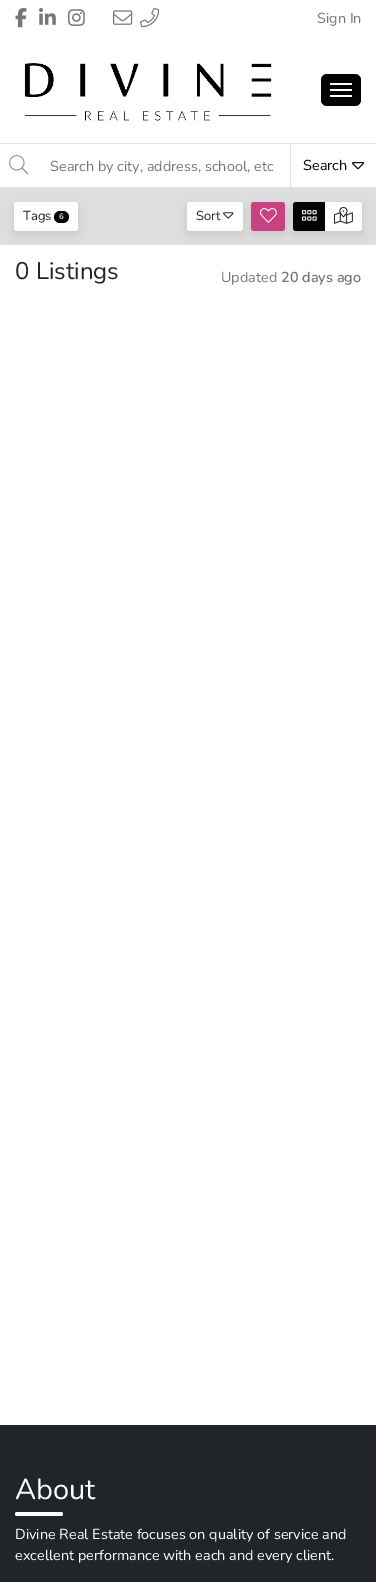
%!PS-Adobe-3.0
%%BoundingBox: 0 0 376 1582
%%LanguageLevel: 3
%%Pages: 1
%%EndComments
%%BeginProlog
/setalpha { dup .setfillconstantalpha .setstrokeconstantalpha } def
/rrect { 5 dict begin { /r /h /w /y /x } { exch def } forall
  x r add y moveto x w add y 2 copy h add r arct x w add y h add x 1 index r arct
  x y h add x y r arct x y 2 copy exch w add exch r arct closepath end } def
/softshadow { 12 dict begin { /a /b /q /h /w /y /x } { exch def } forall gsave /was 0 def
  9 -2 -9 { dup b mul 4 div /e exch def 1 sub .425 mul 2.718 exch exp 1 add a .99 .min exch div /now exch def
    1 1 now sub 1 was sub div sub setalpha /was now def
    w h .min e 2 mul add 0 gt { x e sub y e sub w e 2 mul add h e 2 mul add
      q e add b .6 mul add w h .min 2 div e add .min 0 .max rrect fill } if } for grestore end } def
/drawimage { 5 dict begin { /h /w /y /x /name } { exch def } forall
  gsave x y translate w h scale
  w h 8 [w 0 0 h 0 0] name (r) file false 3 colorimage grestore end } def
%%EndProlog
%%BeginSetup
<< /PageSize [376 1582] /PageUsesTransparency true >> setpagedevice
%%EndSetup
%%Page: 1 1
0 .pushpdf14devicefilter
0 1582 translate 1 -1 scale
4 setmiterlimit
1 setgray
0 0 376 1582 rectfill
(images/1.raw) 15 8 12 20 drawimage
(images/2.raw) 39 8 17 17 drawimage
(images/3.raw) 68 9 17 17 drawimage
(images/4.raw) 113 10 20 15 drawimage
(images/5.raw) 140 8 20 20 drawimage
(images/6.raw) 24 63 248 58 drawimage
0.016 setgray
321 74 40 32 6 rrect fill
1 setgray
330 83 22 2 1 rrect fill
330 89 22 2 1 rrect fill
330 95 22 2 1 rrect fill
0.871 0.886 0.902 setrgbcolor
0 143 376 1 rectfill
(images/7.raw) 9 155 20 20 drawimage
290 144 1 43 rectfill
(images/8.raw) 352 162 12 8 drawimage
0.871 setgray
0 187 376 58 rectfill
0 setgray
14 206 64 29 3 4 0.1 softshadow
1 setgray
14 202 64 29 3 rrect fill
0.016 setgray
54 211 15 12 6 rrect fill
0 setgray
187 206 56 29 3 4 0.1 softshadow
1 setgray
187 202 56 29 3 rrect fill
(images/9.raw) 223 212 11 7 drawimage
0 setgray
251 206 34 29 3 4 0.1 softshadow
0.784 0.255 0.51 setrgbcolor
251 202 34 29 3 rrect fill
(images/10.raw) 260 208 17 15 drawimage
0 setgray
293 206 69 29 0 4 0.1 softshadow
0.016 setgray
newpath 296 202 moveto 326 202 lineto 326 231 lineto 296 231 lineto 294.5 231 293 229.5 293 228 curveto 293 205 lineto 293 203.5 294.5 202 296 202 curveto closepath fill
(images/11.raw) 302 210 15 11 drawimage
1 setgray
newpath 325 202 moveto 359 202 lineto 360.5 202 362 203.5 362 205 curveto 362 228 lineto 362 229.5 360.5 231 359 231 curveto 325 231 lineto closepath fill
(images/12.raw) 334 207 19 17 drawimage
0.129 0.145 0.161 setrgbcolor
0 1425 376 157 rectfill
1 setgray
15 1512 48 4 2 rrect fill
/Nunito-Regular [14.4 0 0 -14.4 0 0] selectfont
0.459 setgray
317 23 moveto (Sign In) show
50 171 moveto (Search by city, address, school, etc) show
0 setgray
303 170 moveto (Search) show
/Nunito-Regular [13 0 0 -13 0 0] selectfont
0.129 0.145 0.161 setrgbcolor
23 220 moveto (Tags) show
/Nunito-SemiBold [8 0 0 -8 0 0] selectfont
1 setgray
59 219 moveto (6) show
/Nunito-Regular [13 0 0 -13 0 0] selectfont
0.129 0.145 0.161 setrgbcolor
196 220 moveto (Sort) show
/Nunito-Regular [24 0 0 -24 0 0] selectfont
15 279 moveto (0 Listings) show
/Nunito-Regular [14.4 0 0 -14.4 0 0] selectfont
0.459 setgray
221 282 moveto (Updated) show
/Nunito-SemiBold [14.4 0 0 -14.4 0 0] selectfont
281 282 moveto (20 days ago) show
/Nunito-Regular [29 0 0 -29 0 0] selectfont
1 setgray
15 1499 moveto (About) show
/Nunito-Regular [14.4 0 0 -14.4 0 0] selectfont
15 1539 moveto (Divine Real Estate focuses on quality of service and) show
15 1560 moveto (excellent performance with each and every client.) show
.poppdf14devicefilter showpage
%%EOF
